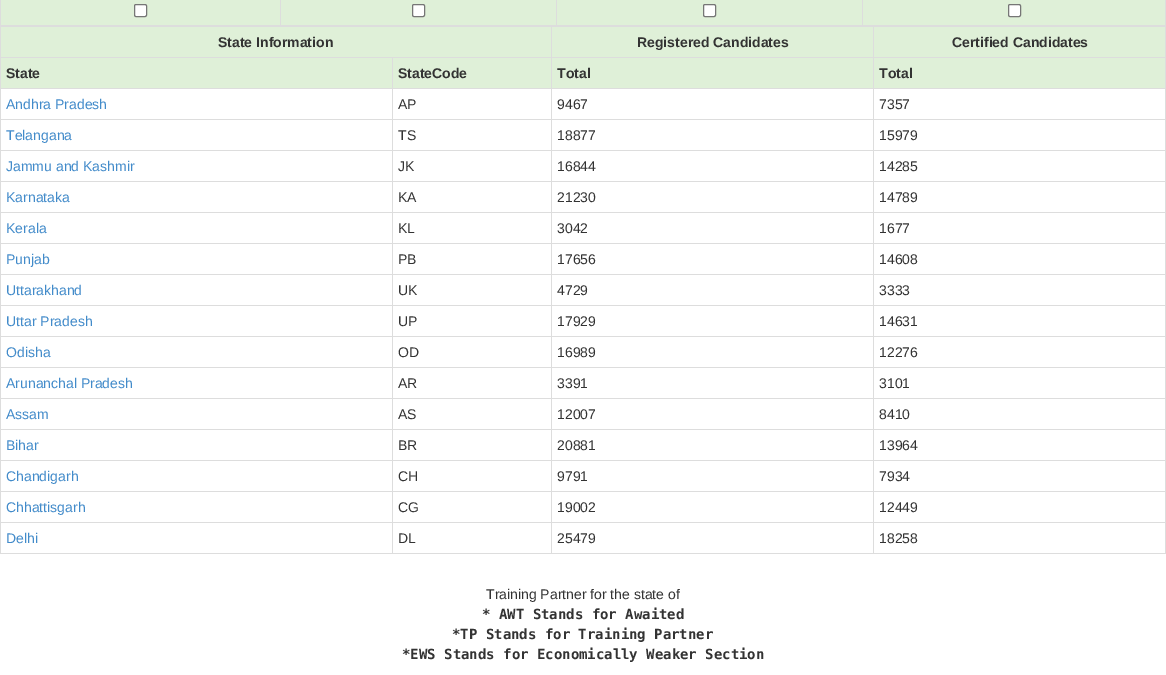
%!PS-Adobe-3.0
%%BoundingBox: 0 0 1166 675
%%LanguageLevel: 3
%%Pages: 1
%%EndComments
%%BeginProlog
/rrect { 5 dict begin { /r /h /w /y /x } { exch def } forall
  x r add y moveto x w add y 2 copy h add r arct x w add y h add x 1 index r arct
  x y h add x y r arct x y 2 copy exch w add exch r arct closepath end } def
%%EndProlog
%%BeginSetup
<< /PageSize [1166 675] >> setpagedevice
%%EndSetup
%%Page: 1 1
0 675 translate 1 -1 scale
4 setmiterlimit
1 setgray
0 0 1166 675 rectfill
0.867 setgray
1165 0 1 26 rectfill
0 25 1166 2 rectfill
0 0 1 554 rectfill
0.875 0.941 0.847 setrgbcolor
1 0 279 25 rectfill
1 setgray
134.5 4.5 12 12 1.5 rrect gsave fill grestore
0.463 setgray
stroke
0.875 0.941 0.847 setrgbcolor
281 0 275 25 rectfill
0.867 setgray
280 0 1 26 rectfill
1 setgray
412.5 4.5 12 12 1.5 rrect gsave fill grestore
0.463 setgray
stroke
0.875 0.941 0.847 setrgbcolor
557 0 305 25 rectfill
0.867 setgray
556 0 1 26 rectfill
1 setgray
703.5 4.5 12 12 1.5 rrect gsave fill grestore
0.463 setgray
stroke
0.875 0.941 0.847 setrgbcolor
863 0 302 25 rectfill
0.867 setgray
862 0 1 26 rectfill
1 setgray
1008.5 4.5 12 12 1.5 rrect gsave fill grestore
0.463 setgray
stroke
0.867 setgray
1165 26 1 528 rectfill
0.875 0.941 0.847 setrgbcolor
1 27 550 30 rectfill
552 27 321 30 rectfill
0.867 setgray
873 57 293 1 rectfill
873 88 293 1 rectfill
873 119 293 1 rectfill
873 150 293 1 rectfill
873 181 293 1 rectfill
873 212 293 1 rectfill
873 243 293 1 rectfill
873 274 293 1 rectfill
873 305 293 1 rectfill
873 336 293 1 rectfill
873 367 293 1 rectfill
873 398 293 1 rectfill
873 429 293 1 rectfill
873 460 293 1 rectfill
873 491 293 1 rectfill
873 522 293 1 rectfill
0 553 1166 1 rectfill
873 522 1 32 rectfill
551 522 323 1 rectfill
873 491 1 32 rectfill
551 491 323 1 rectfill
873 460 1 32 rectfill
551 460 323 1 rectfill
873 429 1 32 rectfill
551 429 323 1 rectfill
873 398 1 32 rectfill
551 398 323 1 rectfill
873 367 1 32 rectfill
551 367 323 1 rectfill
873 336 1 32 rectfill
551 336 323 1 rectfill
873 305 1 32 rectfill
551 305 323 1 rectfill
873 274 1 32 rectfill
551 274 323 1 rectfill
873 243 1 32 rectfill
551 243 323 1 rectfill
873 212 1 32 rectfill
551 212 323 1 rectfill
873 181 1 32 rectfill
551 181 323 1 rectfill
873 150 1 32 rectfill
551 150 323 1 rectfill
873 119 1 32 rectfill
551 119 323 1 rectfill
873 88 1 32 rectfill
551 88 323 1 rectfill
873 57 1 32 rectfill
551 57 323 1 rectfill
551 522 1 32 rectfill
392 522 160 1 rectfill
551 491 1 32 rectfill
392 491 160 1 rectfill
551 460 1 32 rectfill
392 460 160 1 rectfill
551 429 1 32 rectfill
392 429 160 1 rectfill
551 398 1 32 rectfill
392 398 160 1 rectfill
551 367 1 32 rectfill
392 367 160 1 rectfill
551 336 1 32 rectfill
392 336 160 1 rectfill
551 305 1 32 rectfill
392 305 160 1 rectfill
551 274 1 32 rectfill
392 274 160 1 rectfill
551 243 1 32 rectfill
392 243 160 1 rectfill
551 212 1 32 rectfill
392 212 160 1 rectfill
551 181 1 32 rectfill
392 181 160 1 rectfill
551 150 1 32 rectfill
392 150 160 1 rectfill
551 119 1 32 rectfill
392 119 160 1 rectfill
551 88 1 32 rectfill
392 88 160 1 rectfill
551 57 1 32 rectfill
392 57 160 1 rectfill
551 26 1 32 rectfill
0.875 0.941 0.847 setrgbcolor
874 27 291 30 rectfill
0.867 setgray
873 26 1 32 rectfill
0.875 0.941 0.847 setrgbcolor
1 58 391 30 rectfill
0.867 setgray
392 522 1 32 rectfill
0 522 393 1 rectfill
392 491 1 32 rectfill
0 491 393 1 rectfill
392 460 1 32 rectfill
0 460 393 1 rectfill
392 429 1 32 rectfill
0 429 393 1 rectfill
392 398 1 32 rectfill
0 398 393 1 rectfill
392 367 1 32 rectfill
0 367 393 1 rectfill
392 336 1 32 rectfill
0 336 393 1 rectfill
392 305 1 32 rectfill
0 305 393 1 rectfill
392 274 1 32 rectfill
0 274 393 1 rectfill
392 243 1 32 rectfill
0 243 393 1 rectfill
392 212 1 32 rectfill
0 212 393 1 rectfill
392 181 1 32 rectfill
0 181 393 1 rectfill
392 150 1 32 rectfill
0 150 393 1 rectfill
392 119 1 32 rectfill
0 119 393 1 rectfill
392 88 1 32 rectfill
0 88 393 1 rectfill
392 57 1 32 rectfill
0 57 393 1 rectfill
0.875 0.941 0.847 setrgbcolor
393 58 158 30 rectfill
552 58 321 30 rectfill
874 58 291 30 rectfill
/LiberationSans-Bold [14 0 0 -14 0 0] selectfont
0.2 setgray
218 47 moveto (State Information) show
637 47 moveto (Registered Candidates) show
952 47 moveto (Certified Candidates) show
6 78 moveto (State) show
398 78 moveto (StateCode) show
557 78 moveto (Total) show
879 78 moveto (Total) show
/LiberationSans-Regular [14 0 0 -14 0 0] selectfont
0.259 0.545 0.792 setrgbcolor
6 109 moveto (Andhra Pradesh) show
0.2 setgray
398 109 moveto (AP) show
557 109 moveto (9467) show
879 109 moveto (7357) show
0.259 0.545 0.792 setrgbcolor
6 140 moveto (Telangana) show
0.2 setgray
398 140 moveto (TS) show
557 140 moveto (18877) show
879 140 moveto (15979) show
0.259 0.545 0.792 setrgbcolor
6 171 moveto (Jammu and Kashmir) show
0.2 setgray
398 171 moveto (JK) show
557 171 moveto (16844) show
879 171 moveto (14285) show
0.259 0.545 0.792 setrgbcolor
6 202 moveto (Karnataka) show
0.2 setgray
398 202 moveto (KA) show
557 202 moveto (21230) show
879 202 moveto (14789) show
0.259 0.545 0.792 setrgbcolor
6 233 moveto (Kerala) show
0.2 setgray
398 233 moveto (KL) show
557 233 moveto (3042) show
879 233 moveto (1677) show
0.259 0.545 0.792 setrgbcolor
6 264 moveto (Punjab) show
0.2 setgray
398 264 moveto (PB) show
557 264 moveto (17656) show
879 264 moveto (14608) show
0.259 0.545 0.792 setrgbcolor
6 295 moveto (Uttarakhand) show
0.2 setgray
398 295 moveto (UK) show
557 295 moveto (4729) show
879 295 moveto (3333) show
0.259 0.545 0.792 setrgbcolor
6 326 moveto (Uttar Pradesh) show
0.2 setgray
398 326 moveto (UP) show
557 326 moveto (17929) show
879 326 moveto (14631) show
0.259 0.545 0.792 setrgbcolor
6 357 moveto (Odisha) show
0.2 setgray
398 357 moveto (OD) show
557 357 moveto (16989) show
879 357 moveto (12276) show
0.259 0.545 0.792 setrgbcolor
6 388 moveto (Arunanchal Pradesh) show
0.2 setgray
398 388 moveto (AR) show
557 388 moveto (3391) show
879 388 moveto (3101) show
0.259 0.545 0.792 setrgbcolor
6 419 moveto (Assam) show
0.2 setgray
398 419 moveto (AS) show
557 419 moveto (12007) show
879 419 moveto (8410) show
0.259 0.545 0.792 setrgbcolor
6 450 moveto (Bihar) show
0.2 setgray
398 450 moveto (BR) show
557 450 moveto (20881) show
879 450 moveto (13964) show
0.259 0.545 0.792 setrgbcolor
6 481 moveto (Chandigarh) show
0.2 setgray
398 481 moveto (CH) show
557 481 moveto (9791) show
879 481 moveto (7934) show
0.259 0.545 0.792 setrgbcolor
6 512 moveto (Chhattisgarh) show
0.2 setgray
398 512 moveto (CG) show
557 512 moveto (19002) show
879 512 moveto (12449) show
0.259 0.545 0.792 setrgbcolor
6 543 moveto (Delhi) show
0.2 setgray
398 543 moveto (DL) show
557 543 moveto (25479) show
879 543 moveto (18258) show
486 599 moveto (Training Partner for the state of) show
/DejaVuSansMono-Bold [14 0 0 -14 0 0] selectfont
482 619 moveto (* AWT Stands for Awaited) show
452 639 moveto (*TP Stands for Training Partner) show
402 659 moveto (*EWS Stands for Economically Weaker Section) show
showpage
%%EOF
